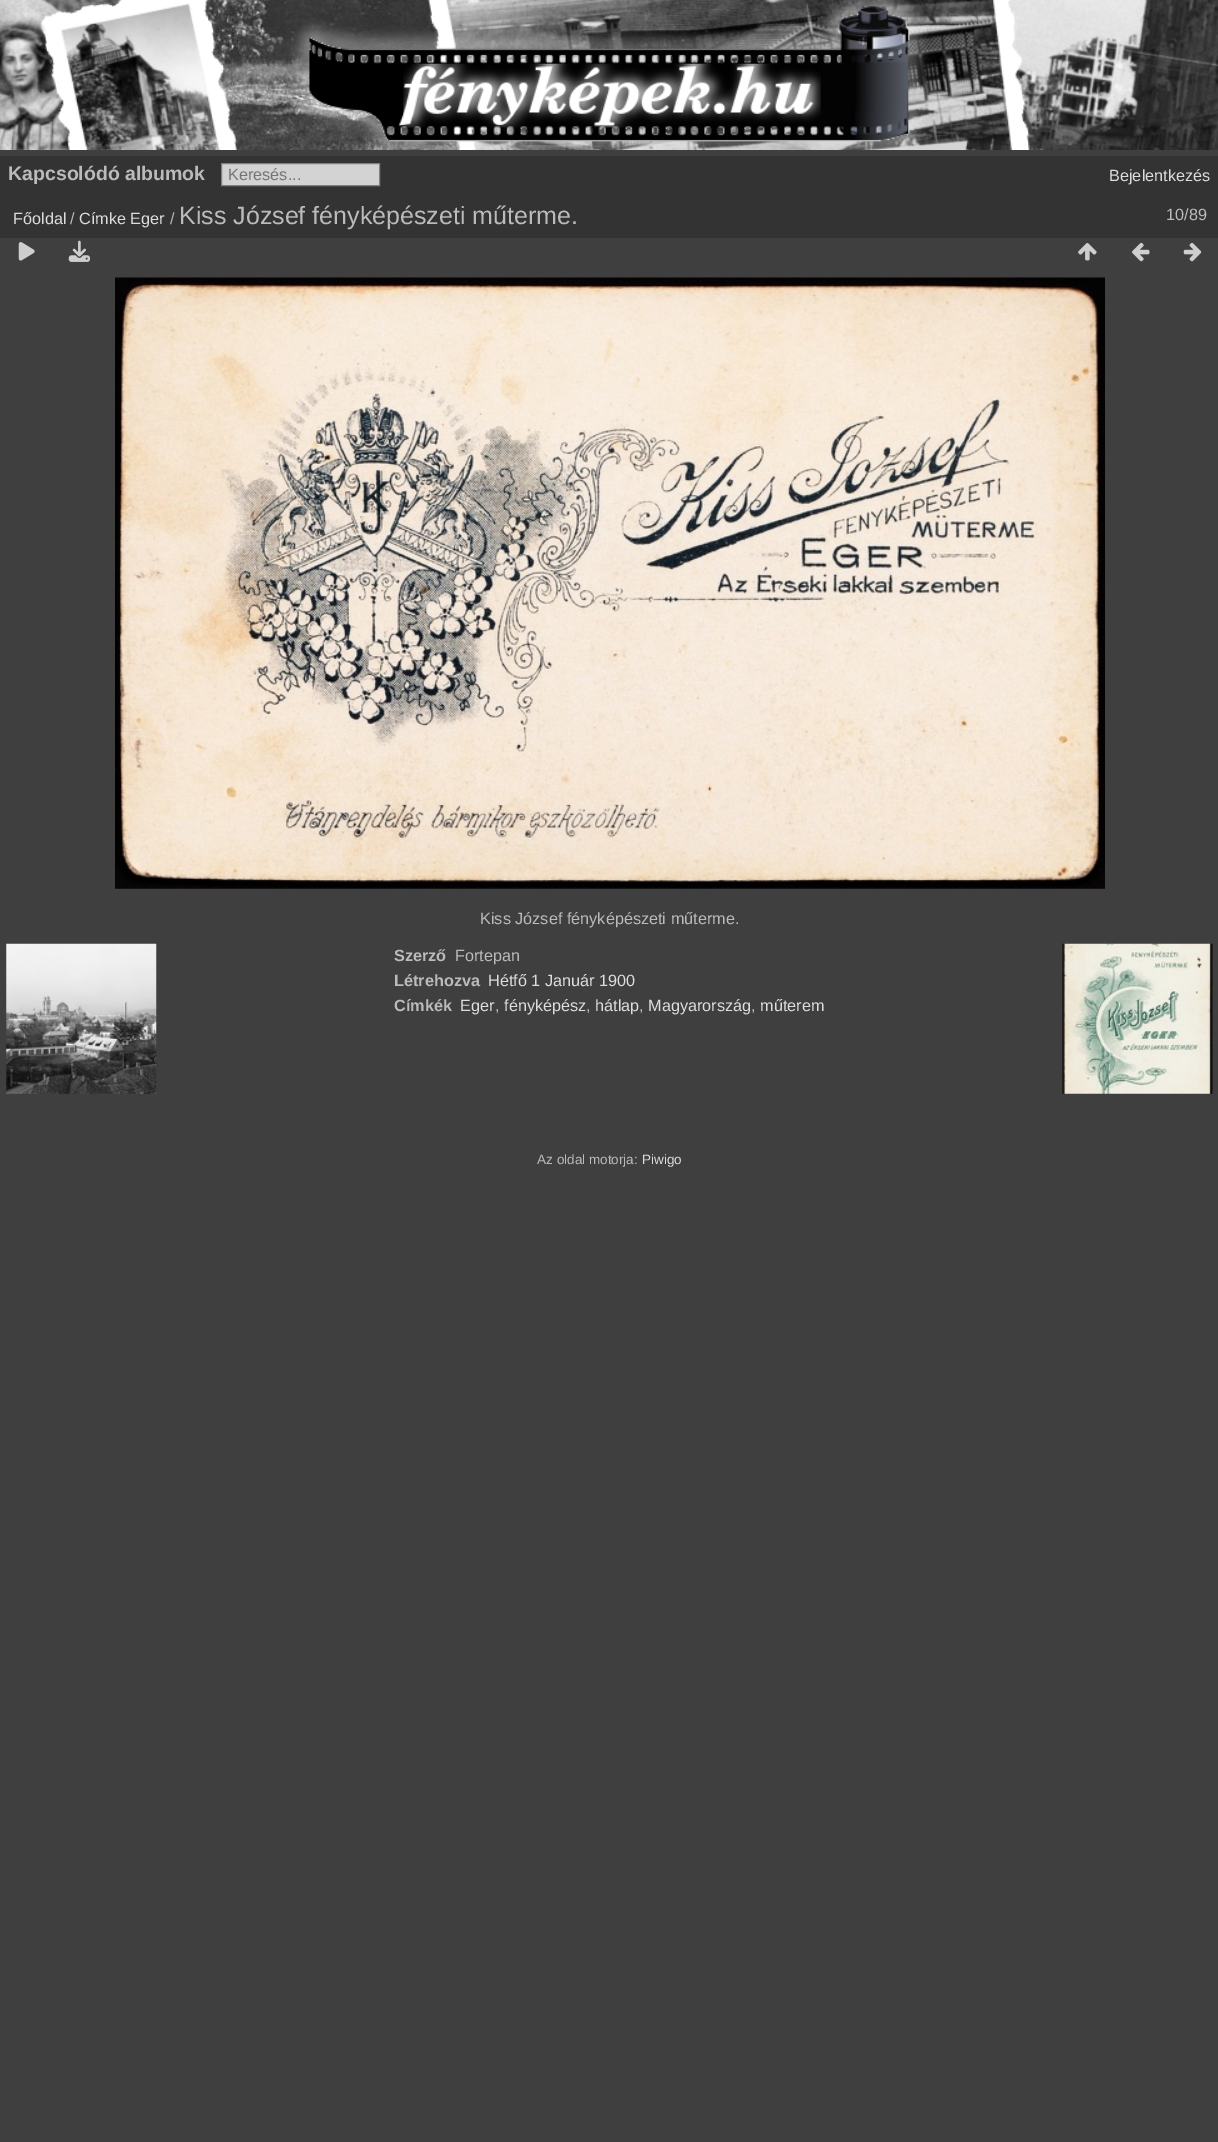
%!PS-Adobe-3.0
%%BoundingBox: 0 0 1218 2142
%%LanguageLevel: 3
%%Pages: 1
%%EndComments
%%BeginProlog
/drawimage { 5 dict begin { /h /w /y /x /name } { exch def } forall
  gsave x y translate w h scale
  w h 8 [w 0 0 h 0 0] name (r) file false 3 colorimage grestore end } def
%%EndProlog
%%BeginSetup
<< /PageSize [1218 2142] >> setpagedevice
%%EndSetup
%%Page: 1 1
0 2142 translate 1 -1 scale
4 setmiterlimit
0.247 setgray
0 0 1218 2142 rectfill
0.831 setgray
0 139 972 11 rectfill
(images/1.raw) 0 0 1218 150 drawimage
0.2 setgray
0 156 1218 82 rectfill
0.827 setgray
newpath 221.5 163.5 moveto 379.5 163.5 lineto 379.5 185.5 lineto 221.5 185.5 lineto closepath gsave fill grestore
0.502 setgray
stroke
(images/2.raw) 18 242 17 19 drawimage
(images/3.raw) 68 240 22 22 drawimage
(images/4.raw) 1078 243 19 18 drawimage
(images/5.raw) 1132 242 18 20 drawimage
(images/6.raw) 1183 242 19 20 drawimage
(images/7.raw) 115 277 990 612 drawimage
(images/8.raw) 6 943 151 151 drawimage
(images/9.raw) 1062 943 151 151 drawimage
/LiberationSans-Bold [19.5 0 0 -19.5 0 0] selectfont
0.733 setgray
8 180 moveto (Kapcsolódó albumok) show
/LiberationSans-Regular [16.25 0 0 -16.25 0 0] selectfont
0.459 setgray
228 180 moveto (Keresés...) show
0.867 setgray
1109 181 moveto (Bejelentkezés) show
13 224 moveto (Főoldal) show
0.733 setgray
70 224 moveto (/) show
0.867 setgray
79 224 moveto (Címke Eger) show
0.733 setgray
170 224 moveto (/) show
/LiberationSans-Regular [25 0 0 -25 0 0] selectfont
179 224 moveto (Kiss József fényképészeti műterme.) show
/LiberationSans-Regular [16.25 0 0 -16.25 0 0] selectfont
1166 220 moveto (10/89) show
480 924 moveto (Kiss József fényképészeti műterme.) show
/LiberationSans-Bold [16.25 0 0 -16.25 0 0] selectfont
394 961 moveto (Szerző) show
/LiberationSans-Regular [16.25 0 0 -16.25 0 0] selectfont
455 961 moveto (Fortepan) show
/LiberationSans-Bold [16.25 0 0 -16.25 0 0] selectfont
394 986 moveto (Létrehozva) show
/LiberationSans-Regular [16.25 0 0 -16.25 0 0] selectfont
0.867 setgray
488 986 moveto (Hétfő 1 Január 1900) show
/LiberationSans-Bold [16.25 0 0 -16.25 0 0] selectfont
0.733 setgray
394 1011 moveto (Címkék) show
/LiberationSans-Regular [16.25 0 0 -16.25 0 0] selectfont
0.867 setgray
460 1011 moveto (Eger) show
0.733 setgray
495 1011 moveto (,) show
0.867 setgray
504 1011 moveto (fényképész) show
0.733 setgray
586 1011 moveto (,) show
0.867 setgray
595 1011 moveto (hátlap) show
0.733 setgray
639 1011 moveto (,) show
0.867 setgray
648 1011 moveto (Magyarország) show
0.733 setgray
751 1011 moveto (,) show
0.867 setgray
760 1011 moveto (műterem) show
/LiberationSans-Regular [13.5 0 0 -13.5 0 0] selectfont
0.733 setgray
537 1164 moveto (Az oldal motorja:) show
0.867 setgray
642 1164 moveto (Piwigo) show
showpage
%%EOF
